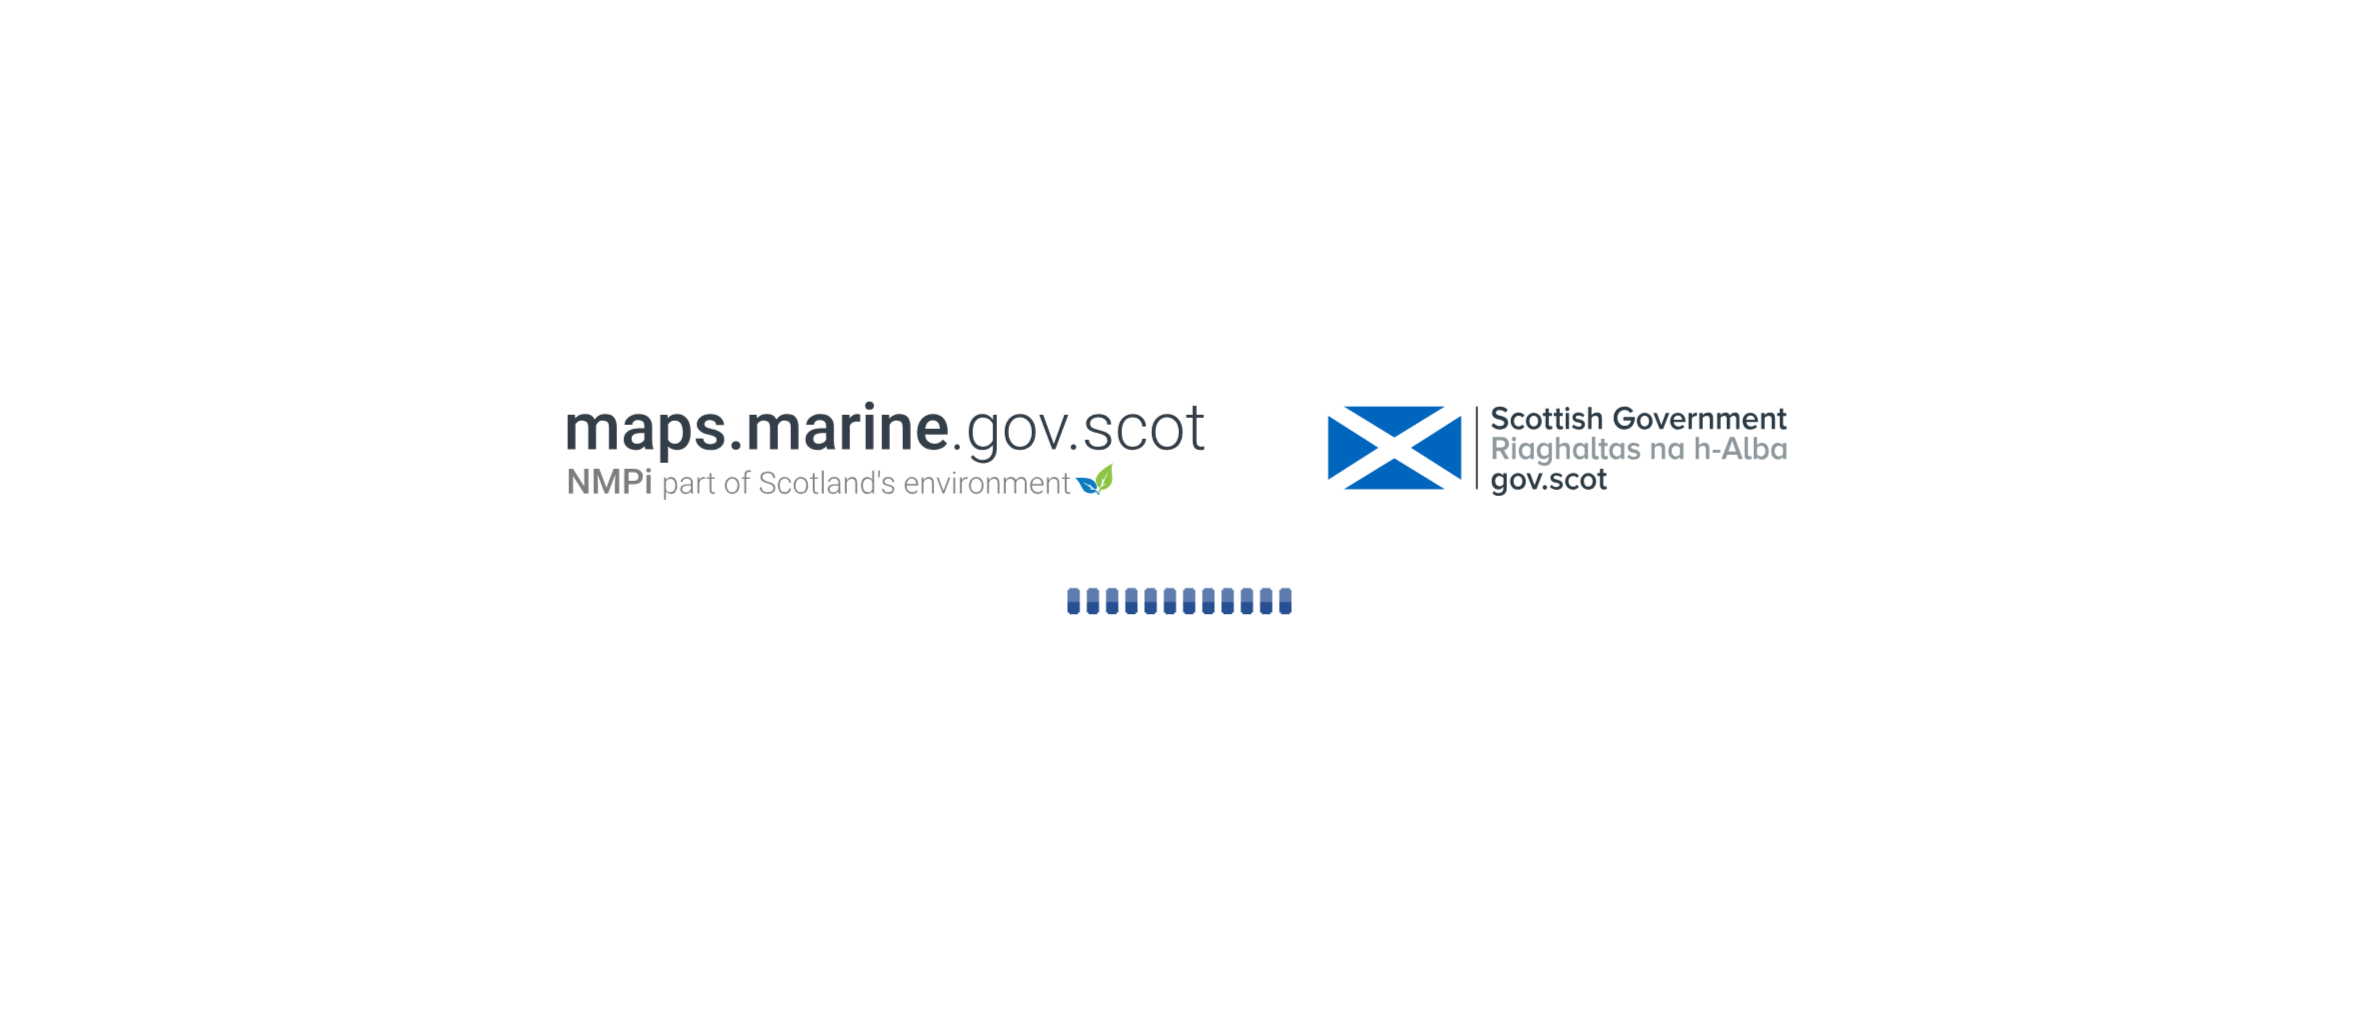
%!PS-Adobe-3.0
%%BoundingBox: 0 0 2359 1012
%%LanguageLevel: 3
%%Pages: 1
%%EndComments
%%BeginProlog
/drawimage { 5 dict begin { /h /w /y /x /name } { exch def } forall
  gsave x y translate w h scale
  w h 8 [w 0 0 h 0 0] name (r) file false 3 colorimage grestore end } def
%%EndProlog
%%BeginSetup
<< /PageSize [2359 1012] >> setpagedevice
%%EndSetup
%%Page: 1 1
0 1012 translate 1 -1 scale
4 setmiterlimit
1 setgray
0 0 2359 1012 rectfill
(images/1.raw) 566 400 1221 100 drawimage
(images/2.raw) 1067 587 225 28 drawimage
showpage
%%EOF
